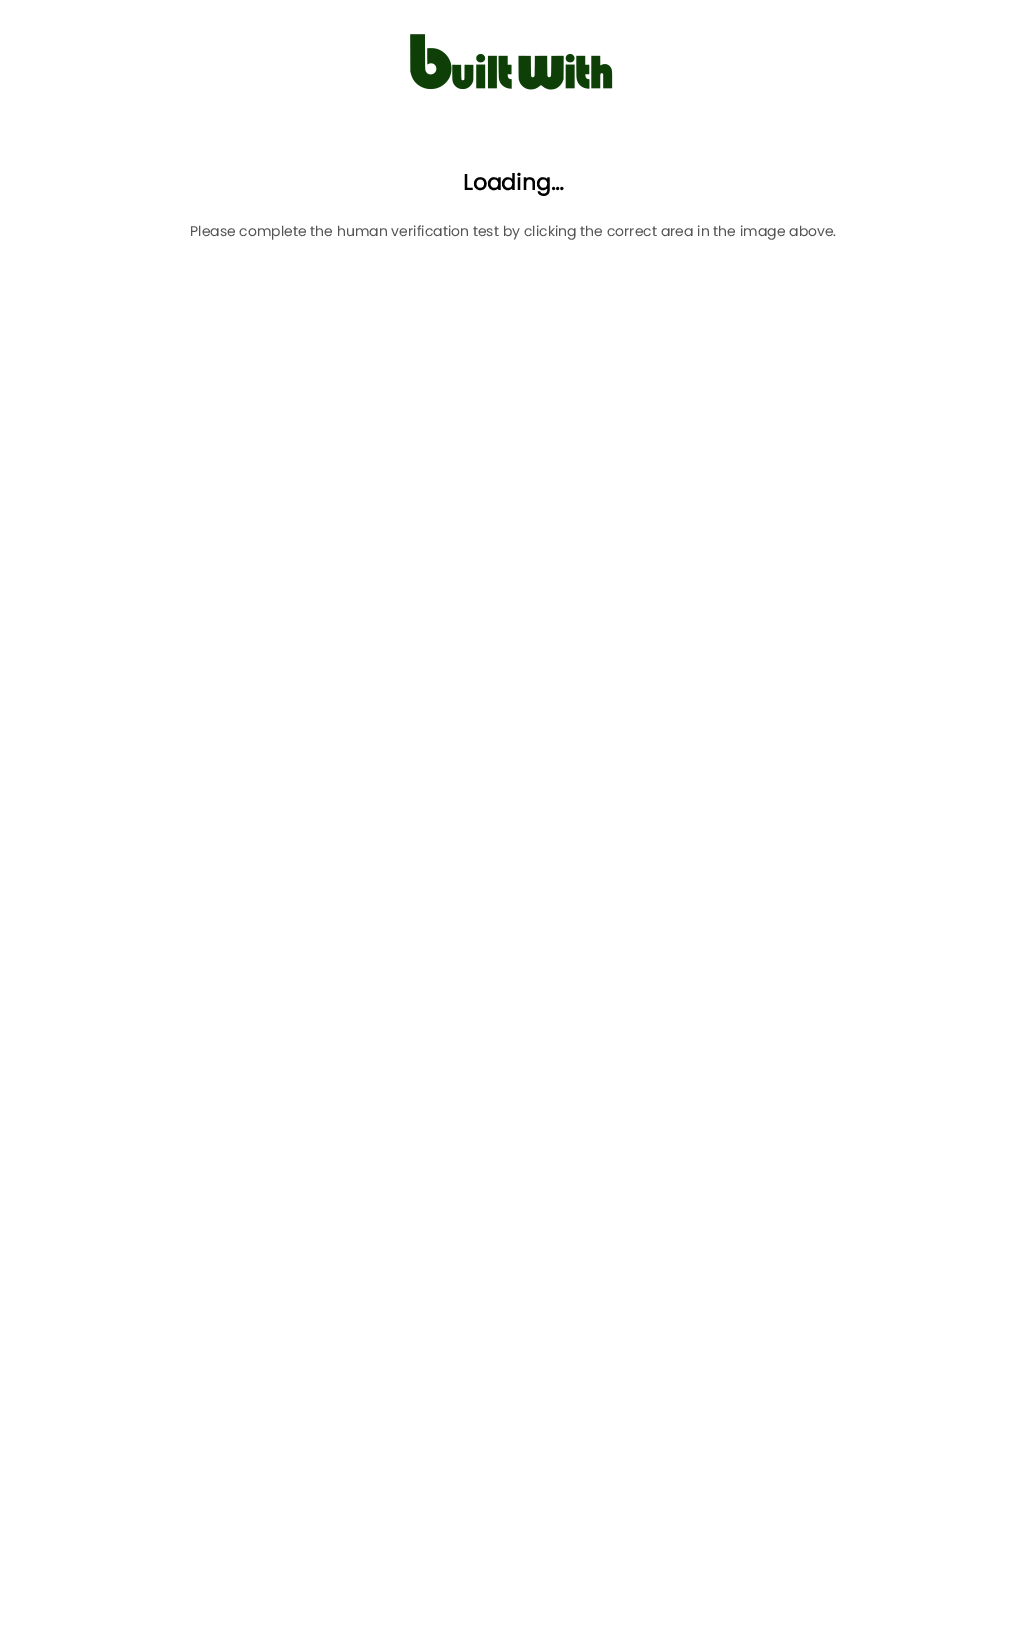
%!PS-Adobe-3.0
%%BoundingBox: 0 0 1027 1646
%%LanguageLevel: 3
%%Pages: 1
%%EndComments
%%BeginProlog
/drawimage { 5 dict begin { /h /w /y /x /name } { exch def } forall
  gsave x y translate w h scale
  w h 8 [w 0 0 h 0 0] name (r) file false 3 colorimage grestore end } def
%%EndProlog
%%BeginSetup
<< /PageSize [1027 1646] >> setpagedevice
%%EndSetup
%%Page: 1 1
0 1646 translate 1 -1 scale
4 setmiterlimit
1 setgray
0 0 1027 1646 rectfill
(images/1.raw) 410 34 203 56 drawimage
/Poppins-Bold [22 0 0 -22 0 0] selectfont
0 setgray
463 190 moveto (Loading…) show
/Poppins-Regular [14 0 0 -14 0 0] selectfont
0.333 setgray
190 236 moveto (Please complete the human verification test by clicking the correct area in the image above.) show
showpage
%%EOF
